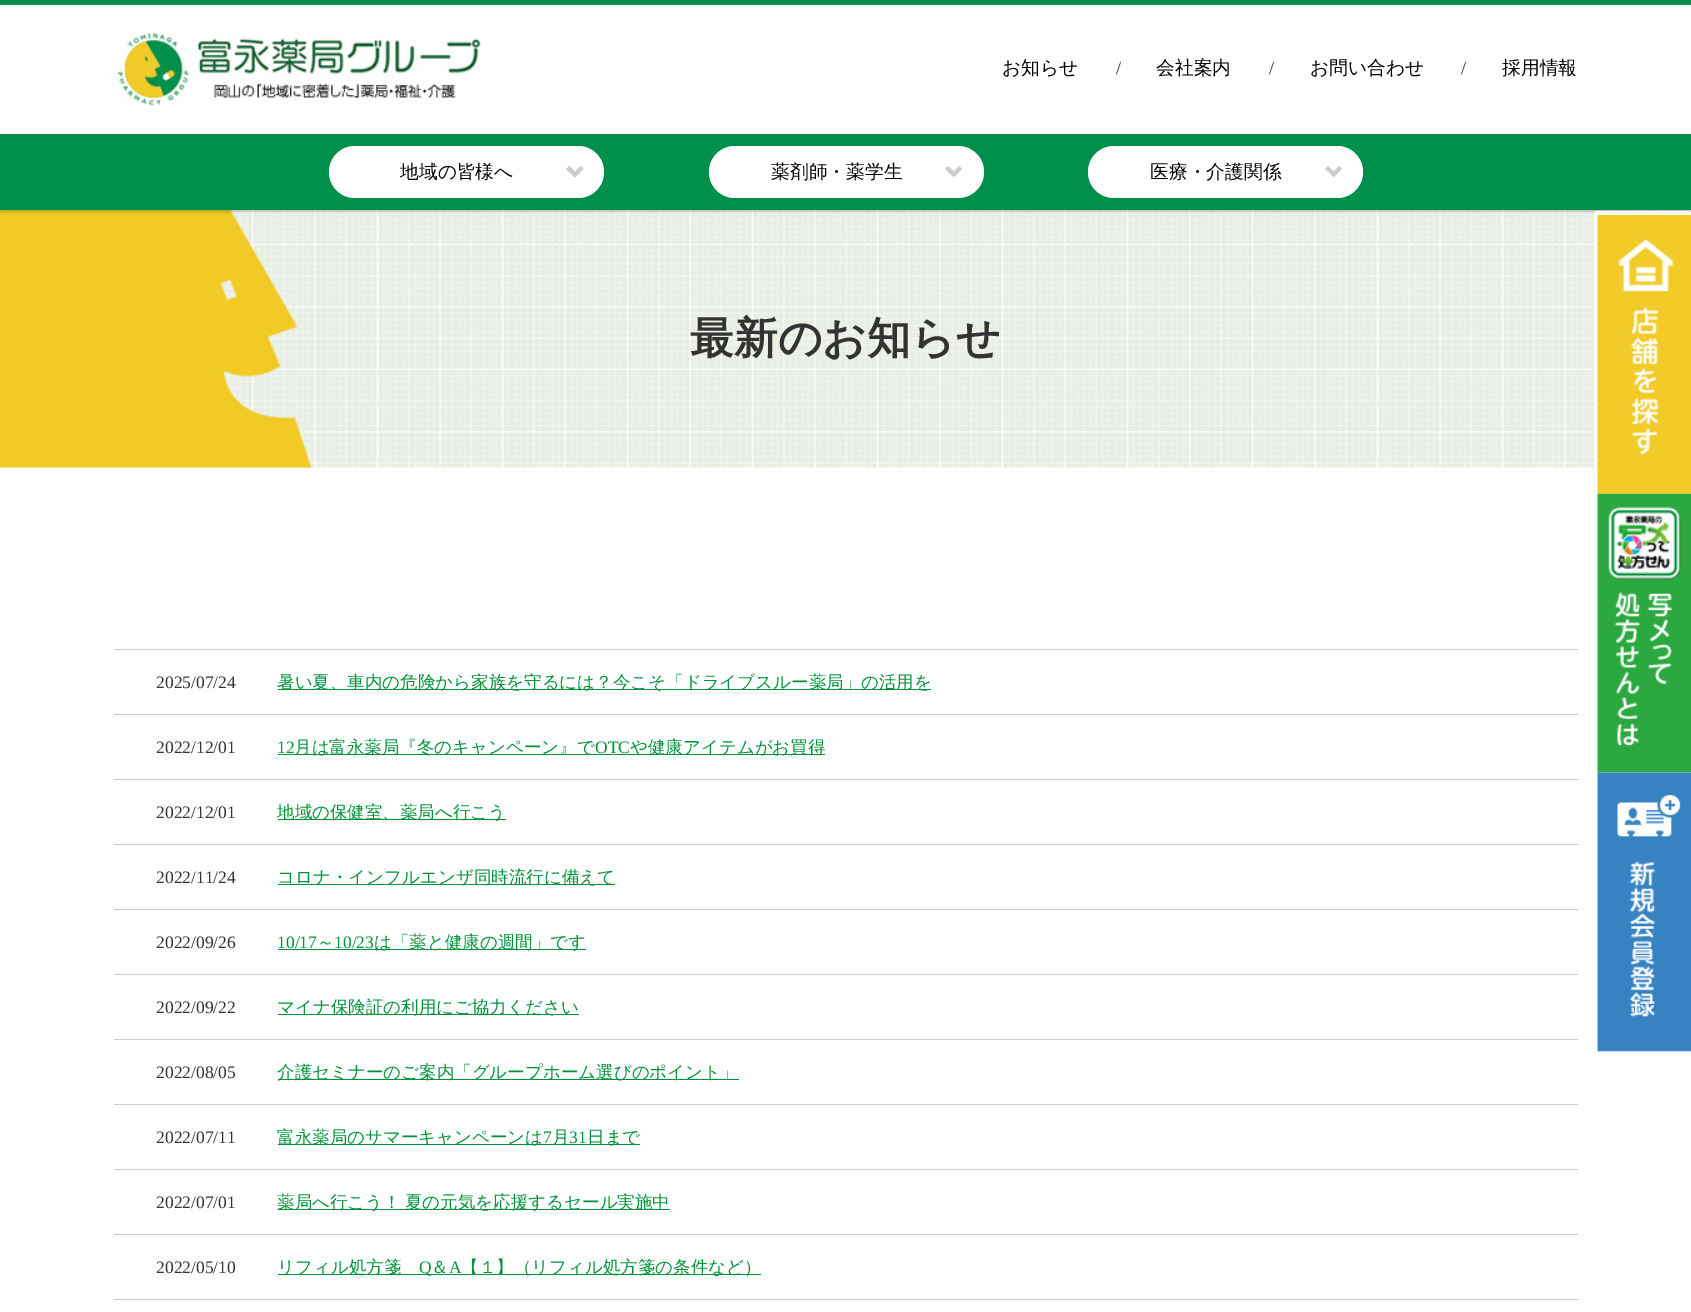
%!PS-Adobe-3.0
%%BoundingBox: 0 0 1691 1312
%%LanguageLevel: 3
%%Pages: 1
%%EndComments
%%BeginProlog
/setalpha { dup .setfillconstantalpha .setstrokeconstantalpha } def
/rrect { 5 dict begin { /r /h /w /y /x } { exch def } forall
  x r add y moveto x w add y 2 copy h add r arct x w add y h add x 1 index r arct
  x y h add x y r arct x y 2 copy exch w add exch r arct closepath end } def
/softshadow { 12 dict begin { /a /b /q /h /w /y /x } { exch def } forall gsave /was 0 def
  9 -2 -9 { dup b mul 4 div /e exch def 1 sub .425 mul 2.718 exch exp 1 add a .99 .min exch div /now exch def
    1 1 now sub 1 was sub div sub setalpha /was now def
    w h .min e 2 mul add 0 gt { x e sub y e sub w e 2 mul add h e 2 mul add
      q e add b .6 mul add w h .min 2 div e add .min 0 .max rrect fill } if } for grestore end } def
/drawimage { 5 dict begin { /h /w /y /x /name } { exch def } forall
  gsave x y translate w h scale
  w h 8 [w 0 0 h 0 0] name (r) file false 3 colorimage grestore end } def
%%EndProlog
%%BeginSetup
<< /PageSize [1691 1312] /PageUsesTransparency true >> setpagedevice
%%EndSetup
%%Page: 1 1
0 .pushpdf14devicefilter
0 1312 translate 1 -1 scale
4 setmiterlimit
1 setgray
0 0 1691 1312 rectfill
(images/3.raw) 0 210 1691 258 drawimage
gsave
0 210 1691 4 rectclip
0 setgray
1 1 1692 210 0 2 0.3 softshadow
grestore
0 0.565 0.294 setrgbcolor
0 0 1691 5 rectfill
(images/1.raw) 117 30 365 76 drawimage
0 134 1691 76 rectfill
1 setgray
329 146 275 52 26 rrect fill
0.8 setgray
newpath 583.5 169 moveto 575 177.5 lineto 566 169 lineto 569.5 166 lineto 575 171.5 lineto 580.5 166 lineto closepath fill
1 setgray
709 146 275 52 26 rrect fill
(images/2.raw) 945 166 17 12 drawimage
1088 146 275 52 26 rrect fill
(images/2.raw) 1325 166 17 12 drawimage
newpath 1598 211 moveto 1688 211 lineto 1690 211 1691 213 1691 215 curveto 1691 1051 lineto 1691 1053 1690 1055 1688 1055 curveto 1598 1055 lineto 1595 1055 1594 1053 1594 1051 curveto 1594 215 lineto 1594 213 1595 211 1598 211 curveto closepath 1598 215 moveto 1691 215 lineto 1691 1051 lineto 1598 1051 lineto closepath eofill
(images/4.raw) 1597 215 94 279 drawimage
(images/5.raw) 1597 493 94 280 drawimage
(images/6.raw) 1597 772 94 280 drawimage
0.8 setgray
114 649 1464 1 rectfill
0 0.573 0.224 setrgbcolor
278 689 653 1 rectfill
0.8 setgray
114 714 1464 1 rectfill
0 0.573 0.224 setrgbcolor
278 754 547 1 rectfill
0.8 setgray
114 779 1464 1 rectfill
0 0.573 0.224 setrgbcolor
278 819 228 1 rectfill
0.8 setgray
114 844 1464 1 rectfill
0 0.573 0.224 setrgbcolor
278 884 337 1 rectfill
0.8 setgray
114 909 1464 1 rectfill
0 0.573 0.224 setrgbcolor
278 949 308 1 rectfill
0.8 setgray
114 974 1464 1 rectfill
0 0.573 0.224 setrgbcolor
278 1014 301 1 rectfill
0.8 setgray
114 1039 1464 1 rectfill
0 0.573 0.224 setrgbcolor
278 1079 461 1 rectfill
0.8 setgray
114 1104 1464 1 rectfill
0 0.573 0.224 setrgbcolor
278 1144 362 1 rectfill
0.8 setgray
114 1169 1464 1 rectfill
0 0.573 0.224 setrgbcolor
278 1209 392 1 rectfill
0.8 setgray
114 1234 1464 1 rectfill
114 1299 1464 1 rectfill
0 0.573 0.224 setrgbcolor
278 1274 483 1 rectfill
/WenQuanYiZenHei-Medium [18.75 0 0 -18.75 0 0] selectfont
0 setgray
1002 74 moveto (お知らせ) show
/LiberationSerif-Regular [18.75 0 0 -18.75 0 0] selectfont
0.2 setgray
1116 74 moveto (/) show
/WenQuanYiZenHei-Medium [18.75 0 0 -18.75 0 0] selectfont
0 setgray
1156 74 moveto (会社案内) show
/LiberationSerif-Regular [18.75 0 0 -18.75 0 0] selectfont
0.2 setgray
1269 74 moveto (/) show
/WenQuanYiZenHei-Medium [18.75 0 0 -18.75 0 0] selectfont
0 setgray
1310 74 moveto (お問い合わせ) show
/LiberationSerif-Regular [18.75 0 0 -18.75 0 0] selectfont
0.2 setgray
1461 74 moveto (/) show
/WenQuanYiZenHei-Medium [18.75 0 0 -18.75 0 0] selectfont
0 setgray
1502 74 moveto (採用情報) show
400 178 moveto (地域の皆様へ) show
771 178 moveto (薬剤師・薬学生) show
1150 178 moveto (医療・介護関係) show
/WenQuanYiZenHei-Bold [43.75 0 0 -43.75 0 0] selectfont
0.2 setgray
690 353 moveto (最新のお知らせ) show
/LiberationSerif-Regular [17.5 0 0 -17.5 0 0] selectfont
156 688 moveto (2025/07/24) show
/WenQuanYiZenHei-Medium [17.5 0 0 -17.5 0 0] selectfont
0 0.573 0.224 setrgbcolor
277 688 moveto (暑い夏、車内の危険から家族を守るには？今こそ「ドライブスルー薬局」の活用を) show
/LiberationSerif-Regular [17.5 0 0 -17.5 0 0] selectfont
0.2 setgray
156 753 moveto (2022/12/01) show
0 0.573 0.224 setrgbcolor
277 753 moveto (12) show
/WenQuanYiZenHei-Medium [17.5 0 0 -17.5 0 0] selectfont
294 753 moveto (月は富永薬局『冬のキャンペーン』で) show
/LiberationSerif-Regular [17.5 0 0 -17.5 0 0] selectfont
595 753 moveto (OTC) show
/WenQuanYiZenHei-Medium [17.5 0 0 -17.5 0 0] selectfont
630 753 moveto (や健康アイテムがお買得) show
/LiberationSerif-Regular [17.5 0 0 -17.5 0 0] selectfont
0.2 setgray
156 818 moveto (2022/12/01) show
/WenQuanYiZenHei-Medium [17.5 0 0 -17.5 0 0] selectfont
0 0.573 0.224 setrgbcolor
277 818 moveto (地域の保健室、薬局へ行こう) show
/LiberationSerif-Regular [17.5 0 0 -17.5 0 0] selectfont
0.2 setgray
156 883 moveto (2022/11/24) show
/WenQuanYiZenHei-Medium [17.5 0 0 -17.5 0 0] selectfont
0 0.573 0.224 setrgbcolor
277 883 moveto (コロナ・インフルエンザ同時流行に備えて) show
/LiberationSerif-Regular [17.5 0 0 -17.5 0 0] selectfont
0.2 setgray
156 948 moveto (2022/09/26) show
0 0.573 0.224 setrgbcolor
277 948 moveto (10/17) show
/WenQuanYiZenHei-Medium [17.5 0 0 -17.5 0 0] selectfont
317 948 moveto (～) show
/LiberationSerif-Regular [17.5 0 0 -17.5 0 0] selectfont
334 948 moveto (10/23) show
/WenQuanYiZenHei-Medium [17.5 0 0 -17.5 0 0] selectfont
374 948 moveto (は「薬と健康の週間」です) show
/LiberationSerif-Regular [17.5 0 0 -17.5 0 0] selectfont
0.2 setgray
156 1013 moveto (2022/09/22) show
/WenQuanYiZenHei-Medium [17.5 0 0 -17.5 0 0] selectfont
0 0.573 0.224 setrgbcolor
277 1013 moveto (マイナ保険証の利用にご協力ください) show
/LiberationSerif-Regular [17.5 0 0 -17.5 0 0] selectfont
0.2 setgray
156 1078 moveto (2022/08/05) show
/WenQuanYiZenHei-Medium [17.5 0 0 -17.5 0 0] selectfont
0 0.573 0.224 setrgbcolor
277 1078 moveto (介護セミナーのご案内「グループホーム選びのポイント」) show
/LiberationSerif-Regular [17.5 0 0 -17.5 0 0] selectfont
0.2 setgray
156 1143 moveto (2022/07/11) show
/WenQuanYiZenHei-Medium [17.5 0 0 -17.5 0 0] selectfont
0 0.573 0.224 setrgbcolor
277 1143 moveto (富永薬局のサマーキャンペーンは) show
/LiberationSerif-Regular [17.5 0 0 -17.5 0 0] selectfont
543 1143 moveto (7) show
/WenQuanYiZenHei-Medium [17.5 0 0 -17.5 0 0] selectfont
552 1143 moveto (月) show
/LiberationSerif-Regular [17.5 0 0 -17.5 0 0] selectfont
569 1143 moveto (31) show
/WenQuanYiZenHei-Medium [17.5 0 0 -17.5 0 0] selectfont
587 1143 moveto (日まで) show
/LiberationSerif-Regular [17.5 0 0 -17.5 0 0] selectfont
0.2 setgray
156 1208 moveto (2022/07/01) show
/WenQuanYiZenHei-Medium [17.5 0 0 -17.5 0 0] selectfont
0 0.573 0.224 setrgbcolor
277 1208 moveto -1 0 32 (薬局へ行こう！ 夏の元気を応援するセール実施中) widthshow
/LiberationSerif-Regular [17.5 0 0 -17.5 0 0] selectfont
0.2 setgray
156 1273 moveto (2022/05/10) show
/WenQuanYiZenHei-Medium [17.5 0 0 -17.5 0 0] selectfont
0 0.573 0.224 setrgbcolor
277 1273 moveto (リフィル処方箋) show
/LiberationSerif-Regular [17.5 0 0 -17.5 0 0] selectfont
419 1273 moveto (Q) show
/WenQuanYiZenHei-Medium [17.5 0 0 -17.5 0 0] selectfont
431 1273 moveto (＆) show
/LiberationSerif-Regular [17.5 0 0 -17.5 0 0] selectfont
449 1273 moveto (A) show
/WenQuanYiZenHei-Medium [17.5 0 0 -17.5 0 0] selectfont
461 1273 moveto (【１】（リフィル処方箋の条件など）) show
.poppdf14devicefilter showpage
%%EOF
